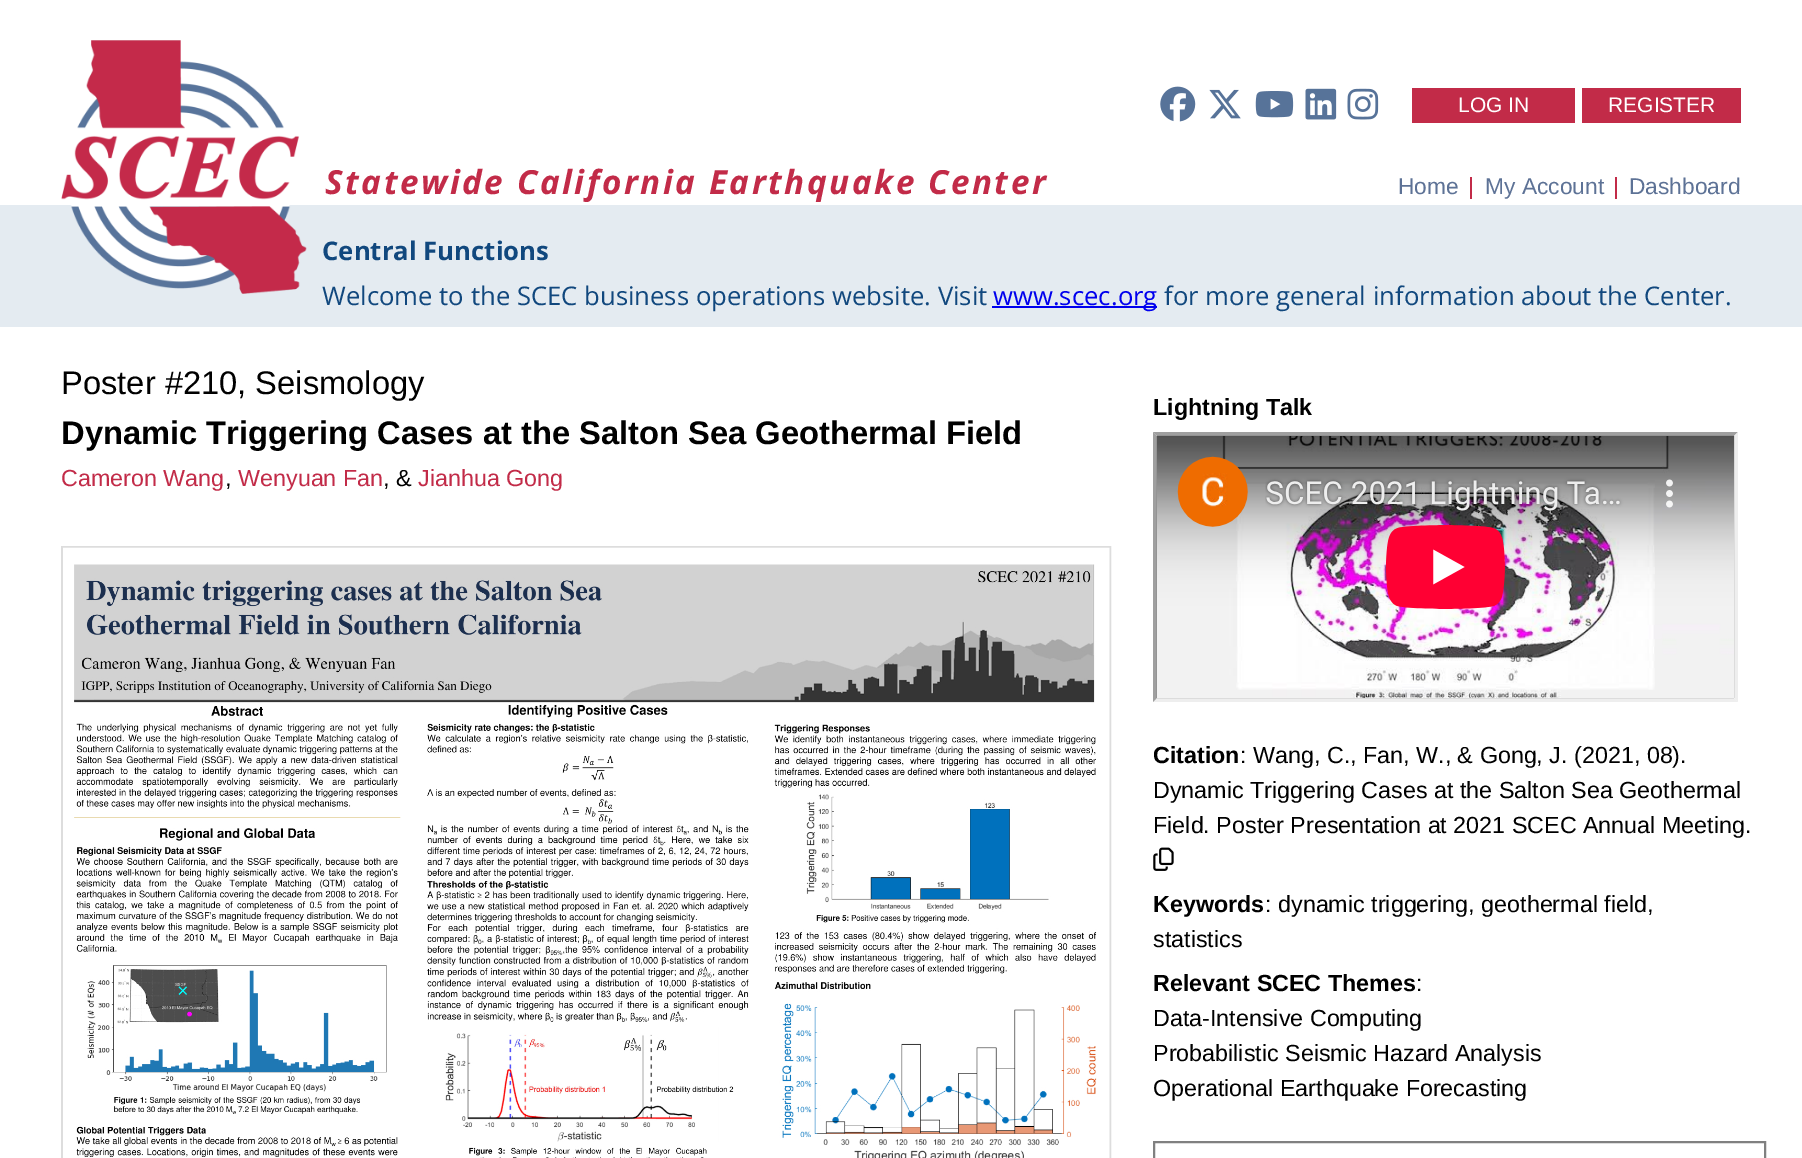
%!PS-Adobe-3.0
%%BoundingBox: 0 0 1802 1158
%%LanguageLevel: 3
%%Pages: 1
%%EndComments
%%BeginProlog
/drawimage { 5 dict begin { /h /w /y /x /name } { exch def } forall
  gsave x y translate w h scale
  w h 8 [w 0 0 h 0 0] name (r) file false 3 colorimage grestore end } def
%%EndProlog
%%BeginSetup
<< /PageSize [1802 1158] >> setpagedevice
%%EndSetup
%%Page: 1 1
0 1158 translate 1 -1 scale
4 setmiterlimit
1 setgray
0 0 1802 1158 rectfill
(images/1.raw) 1160 86 36 36 drawimage
(images/2.raw) 1209 89 32 30 drawimage
(images/3.raw) 1255 91 39 27 drawimage
(images/4.raw) 1305 88 32 32 drawimage
(images/5.raw) 1347 88 32 32 drawimage
0.761 0.169 0.282 setrgbcolor
1412 88 163 35 rectfill
1582 88 159 35 rectfill
0.894 0.922 0.945 setrgbcolor
0 205 1802 122 rectfill
(images/6.raw) 61 40 246 254 drawimage
0 0 0.933 setrgbcolor
992 306 165 2 rectfill
0.867 setgray
2 setlinewidth
62 547 1048 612 rectstroke
(images/7.raw) 63 547 1047 611 drawimage
0.624 setgray
newpath 1153 432 moveto 1738 432 lineto 1734 436 lineto 1157 436 lineto closepath fill
0.933 setgray
newpath 1738 432 moveto 1738 702 lineto 1734 698 lineto 1734 436 lineto closepath fill
newpath 1738 702 moveto 1153 702 lineto 1157 698 lineto 1734 698 lineto closepath fill
0.624 setgray
newpath 1153 702 moveto 1153 432 lineto 1157 436 lineto 1157 698 lineto closepath fill
(images/8.raw) 1156 435 579 264 drawimage
(images/9.raw) 1153 847 21 24 drawimage
0.502 setgray
1154 1142 611 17 rectstroke
/LiberationSans-Regular [21 0 0 -21 0 0] selectfont
1 setgray
1458 112 moveto (LOG IN) show
1608 112 moveto (REGISTER) show
/OpenSans-BoldItalic [33.25 0 0 -33.25 0 0] selectfont
0.761 0.169 0.282 setrgbcolor
325 194 moveto 2.55 0 (Statewide California Earthquake Center) ashow
/LiberationSans-Regular [22.75 0 0 -22.75 0 0] selectfont
0.365 0.447 0.588 setrgbcolor
1398 194 moveto (Home) show
/LiberationSans-Regular [23.3 0 0 -23.3 0 0] selectfont
0.761 0.169 0.282 setrgbcolor
1468 194 moveto (|) show
/LiberationSans-Regular [22.75 0 0 -22.75 0 0] selectfont
0.365 0.447 0.588 setrgbcolor
1485 194 moveto (My Account) show
/LiberationSans-Regular [23.3 0 0 -23.3 0 0] selectfont
0.761 0.169 0.282 setrgbcolor
1613 194 moveto (|) show
/LiberationSans-Regular [22.75 0 0 -22.75 0 0] selectfont
0.365 0.447 0.588 setrgbcolor
1629 194 moveto (Dashboard) show
/OpenSans-Bold [25.7 0 0 -25.7 0 0] selectfont
0.067 0.282 0.494 setrgbcolor
322 260 moveto (Central Functions) show
/OpenSans-Regular [25.7 0 0 -25.7 0 0] selectfont
322 305 moveto (Welcome to the SCEC business operations website. Visit) show
0 0 0.933 setrgbcolor
993 305 moveto (www.scec.org) show
0.067 0.282 0.494 setrgbcolor
1164 305 moveto (for more general information about the Center.) show
/LiberationSans-Regular [32.7 0 0 -32.7 0 0] selectfont
0 setgray
61 394 moveto (Poster #210, Seismology) show
/LiberationSans-Bold [32.7 0 0 -32.7 0 0] selectfont
61 444 moveto (Dynamic Triggering Cases at the Salton Sea Geothermal Field) show
/LiberationSans-Regular [23.3 0 0 -23.3 0 0] selectfont
0.761 0.169 0.282 setrgbcolor
61 486 moveto (Cameron Wang) show
0 setgray
225 486 moveto (,) show
0.761 0.169 0.282 setrgbcolor
238 486 moveto (Wenyuan Fan) show
0 setgray
383 486 moveto (, &) show
0.761 0.169 0.282 setrgbcolor
418 486 moveto (Jianhua Gong) show
/LiberationSans-Bold [23.3 0 0 -23.3 0 0] selectfont
0 setgray
1153 415 moveto (Lightning Talk) show
1153 763 moveto (Citation) show
/LiberationSans-Regular [23.3 0 0 -23.3 0 0] selectfont
1240 763 moveto (: Wang, C., Fan, W., & Gong, J. \(2021, 08\).) show
1153 798 moveto (Dynamic Triggering Cases at the Salton Sea Geothermal) show
1153 833 moveto (Field. Poster Presentation at 2021 SCEC Annual Meeting.) show
/LiberationSans-Bold [23.3 0 0 -23.3 0 0] selectfont
1153 912 moveto (Keywords) show
/LiberationSans-Regular [23.3 0 0 -23.3 0 0] selectfont
1265 912 moveto (: dynamic triggering, geothermal field,) show
1153 947 moveto (statistics) show
/LiberationSans-Bold [23.3 0 0 -23.3 0 0] selectfont
1153 991 moveto (Relevant SCEC Themes) show
/LiberationSans-Regular [23.3 0 0 -23.3 0 0] selectfont
1416 991 moveto (:) show
1153 1026 moveto (Data-Intensive Computing) show
1153 1061 moveto (Probabilistic Seismic Hazard Analysis) show
1153 1096 moveto (Operational Earthquake Forecasting) show
showpage
%%EOF
